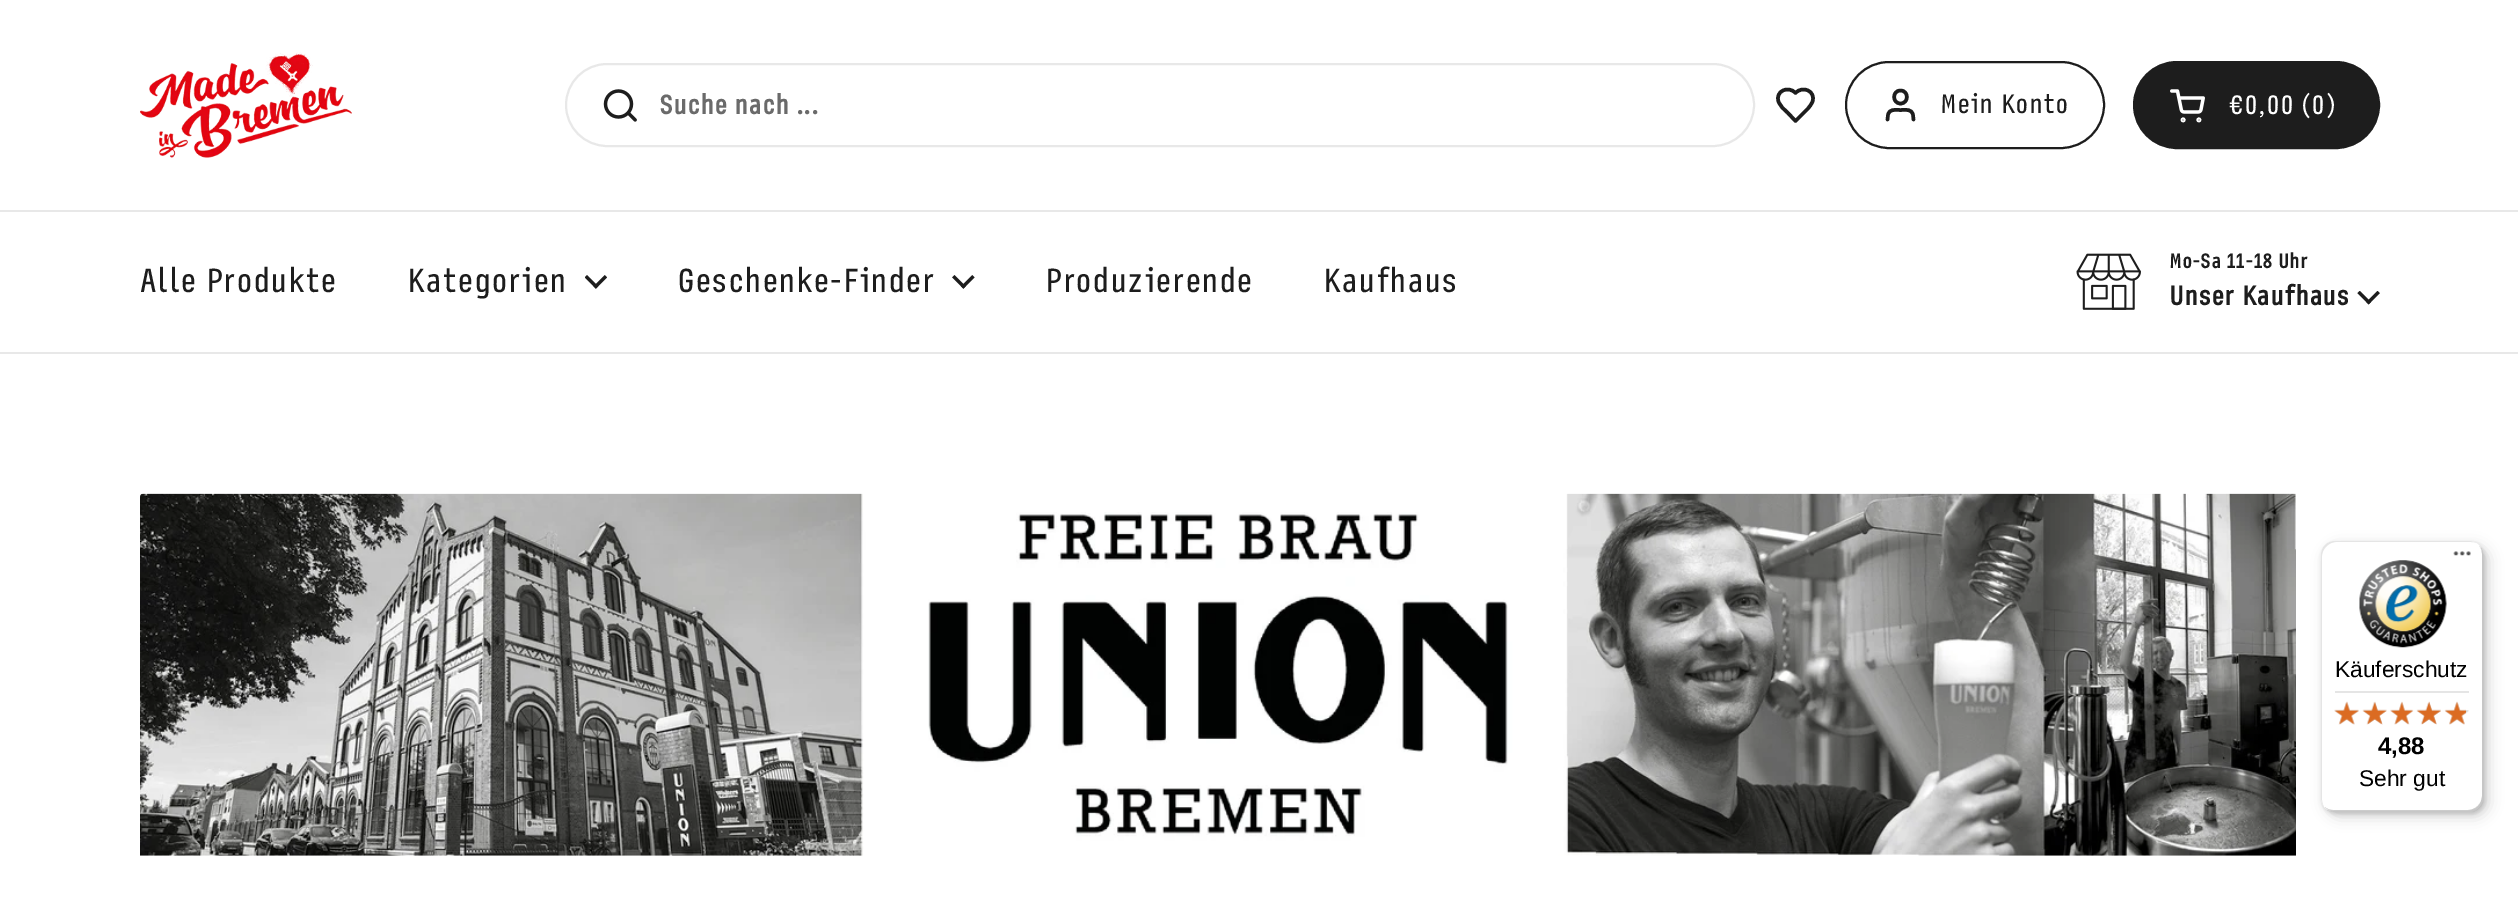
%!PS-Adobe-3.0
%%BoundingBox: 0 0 2518 908
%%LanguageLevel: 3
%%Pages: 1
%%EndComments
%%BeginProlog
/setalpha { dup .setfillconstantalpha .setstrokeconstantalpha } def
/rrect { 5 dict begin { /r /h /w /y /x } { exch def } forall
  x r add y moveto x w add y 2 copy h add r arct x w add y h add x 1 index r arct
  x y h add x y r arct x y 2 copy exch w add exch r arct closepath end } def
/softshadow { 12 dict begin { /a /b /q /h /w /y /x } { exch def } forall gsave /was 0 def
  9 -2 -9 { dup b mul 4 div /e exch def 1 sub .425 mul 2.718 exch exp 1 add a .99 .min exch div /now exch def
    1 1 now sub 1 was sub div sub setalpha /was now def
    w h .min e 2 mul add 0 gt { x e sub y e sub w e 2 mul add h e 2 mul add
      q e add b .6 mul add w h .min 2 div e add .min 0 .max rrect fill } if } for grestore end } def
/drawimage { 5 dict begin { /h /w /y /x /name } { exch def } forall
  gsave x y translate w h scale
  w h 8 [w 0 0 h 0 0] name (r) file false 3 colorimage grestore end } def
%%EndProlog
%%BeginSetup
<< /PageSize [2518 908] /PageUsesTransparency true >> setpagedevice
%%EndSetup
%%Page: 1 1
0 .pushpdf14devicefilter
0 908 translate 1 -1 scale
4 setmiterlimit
1 setgray
0 0 2518 908 rectfill
0.91 setgray
0 210 2518 2 rectfill
(images/1.raw) 140 52 212 106 drawimage
2 setlinewidth
566 64 1188 82 41 rrect stroke
(images/2.raw) 603 89 34 33 drawimage
0.114 setgray
3.5 setlinewidth
1 setlinecap
1 setlinejoin
newpath 1808 108.5 moveto 1809.5 106.5 1811.5 104.5 1812.5 101.5 curveto 1816 91.5 1803 85 1795.5 93 curveto 1788 85 1775 91.5 1778.5 101.5 curveto 1780 106 1784 109.5 1787.5 112.5 curveto 1795.5 121 lineto closepath stroke
2 setlinewidth
0 setlinecap
0 setlinejoin
1846 62 258 86 43 rrect stroke
3.5 setlinewidth
1 setlinecap
1 setlinejoin
newpath 1913.5 119.5 moveto 1913 115 lineto 1912 108.5 1905.5 110 1900.5 110 curveto 1895.5 110 1889 108.5 1888 115 curveto 1887.5 119.5 lineto 1900.5 103.5 moveto 1909 103.5 1909 90.5 1900.5 90.5 curveto 1892 90.5 1892 103.5 1900.5 103.5 curveto closepath stroke
2134 62 245 86 43 rrect gsave fill grestore
2 setlinewidth
0 setlinecap
0 setlinejoin
stroke
(images/3.raw) 2170 89 35 34 drawimage
0.91 setgray
0 352 2518 2 rectfill
(images/4.raw) 585 275 22 14 drawimage
(images/5.raw) 952 275 23 14 drawimage
(images/6.raw) 2076 253 65 57 drawimage
(images/7.raw) 2357 291 23 14 drawimage
(images/8.raw) 140 493 2156 363 drawimage
0 setgray
2326 546 163 271 14 7 0.15 softshadow
2322 543 163 271 14 2 0.15 softshadow
1 setgray
2321 541 162 271 14 rrect fill
0.898 setgray
newpath 2336 542 moveto 2471 542 lineto 2473 542 2475 542 2476 543 curveto 2474 542 2472 541 2469 541 curveto 2335 541 lineto 2327 541 2321 547 2321 555 curveto 2321 798 lineto 2321 801 2322 804 2324 807 curveto 2323 805 2322 802 2322 800 curveto 2322 556 lineto 2322 549 2329 542 2336 542 curveto closepath fill
0.2 setalpha
0 setgray
newpath 2325 807 moveto 2327 810 2331 812 2335 812 curveto 2469 812 lineto 2477 812 2483 806 2483 798 curveto 2483 555 lineto 2483 552 2482 550 2481 548 curveto 2482 549 2482 551 2482 553 curveto 2482 796 lineto 2482 804 2475 810 2468 810 curveto 2333 810 lineto 2330 810 2327 809 2325 807 curveto closepath fill
0.196 setgray
newpath 2327 810 moveto 2329 811 2332 812 2335 812 curveto 2469 812 lineto 2477 812 2483 806 2483 798 curveto 2483 555 lineto 2483 551 2482 548 2479 546 curveto 2481 548 2482 551 2482 554 curveto 2482 797 lineto 2482 805 2476 811 2468 811 curveto 2333 811 lineto 2331 811 2329 811 2327 810 curveto closepath fill
0.3 setalpha
1 setgray
newpath 2326 808 moveto 2328 811 2331 812 2335 812 curveto 2469 812 lineto 2477 812 2483 806 2483 798 curveto 2483 555 lineto 2483 551 2482 548 2479 546 curveto 2481 548 2482 551 2482 554 curveto 2482 797 lineto 2482 805 2476 811 2468 811 curveto 2334 811 lineto 2331 811 2328 810 2326 808 curveto closepath fill
1 setalpha
(images/9.raw) 2453 551 18 5 drawimage
(images/10.raw) 2359 560 88 88 drawimage
0.898 setgray
2335 691 134 2 rectfill
(images/16.raw) 2334 702 25 23 drawimage
(images/11.raw) 2334 701 25 24 drawimage
(images/17.raw) 2363 702 24 23 drawimage
(images/12.raw) 2362 701 25 24 drawimage
(images/18.raw) 2390 702 23 23 drawimage
(images/13.raw) 2390 701 24 24 drawimage
(images/19.raw) 2417 702 24 22 drawimage
(images/14.raw) 2416 701 25 24 drawimage
(images/20.raw) 2445 702 24 23 drawimage
(images/15.raw) 2444 701 22 24 drawimage
/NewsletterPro-Bold [28 0 0 -28 0 0] selectfont
0.416 setgray
659 114 moveto (Suche nach ...) show
/NewsletterPro-Regular [28 0 0 -28 0 0] selectfont
0.114 setgray
1940 113 moveto (Mein Konto) show
1 setgray
2228 114 moveto (€0,00 \(0\)) show
/NewsletterPro-Regular [35 0 0 -35 0 0] selectfont
0.114 setgray
139 292 moveto (Alle Produkte) show
407 292 moveto (Kategorien) show
677 292 moveto (Geschenke-Finder) show
1045 292 moveto (Produzierende) show
1323 292 moveto (Kaufhaus) show
/NewsletterPro-Bold [21 0 0 -21 0 0] selectfont
2169 268 moveto (Mo-Sa 11-18 Uhr) show
/NewsletterPro-Bold [28 0 0 -28 0 0] selectfont
2169 305 moveto (Unser Kaufhaus) show
/LiberationSans-Regular [22.75 0 0 -22.75 0 0] selectfont
0 setgray
2335 677 moveto (Käuferschutz) show
/LiberationSans-Bold [24 0 0 -24 0 0] selectfont
2378 754 moveto (4,88) show
/LiberationSans-Regular [22.75 0 0 -22.75 0 0] selectfont
2359 786 moveto (Sehr gut) show
.poppdf14devicefilter showpage
%%EOF
